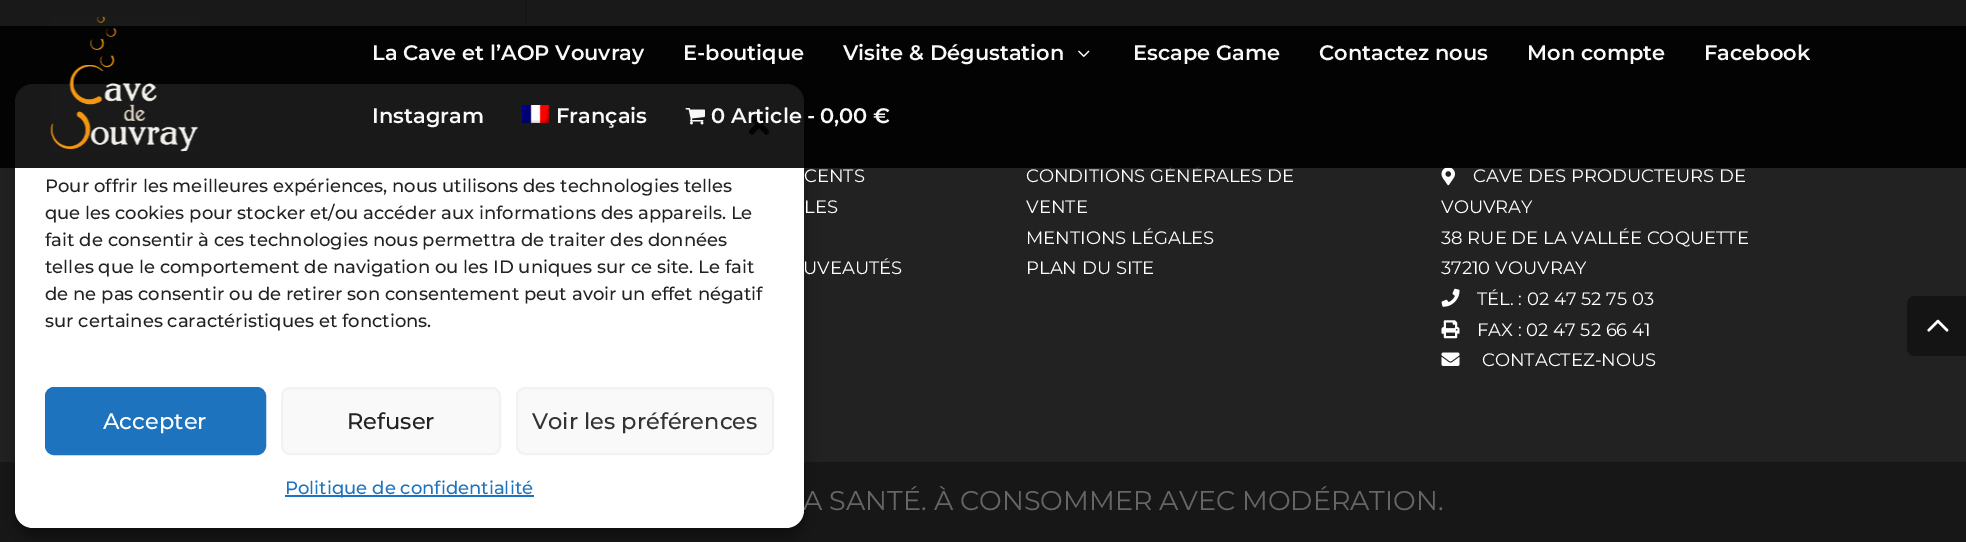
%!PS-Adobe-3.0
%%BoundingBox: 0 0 1966 542
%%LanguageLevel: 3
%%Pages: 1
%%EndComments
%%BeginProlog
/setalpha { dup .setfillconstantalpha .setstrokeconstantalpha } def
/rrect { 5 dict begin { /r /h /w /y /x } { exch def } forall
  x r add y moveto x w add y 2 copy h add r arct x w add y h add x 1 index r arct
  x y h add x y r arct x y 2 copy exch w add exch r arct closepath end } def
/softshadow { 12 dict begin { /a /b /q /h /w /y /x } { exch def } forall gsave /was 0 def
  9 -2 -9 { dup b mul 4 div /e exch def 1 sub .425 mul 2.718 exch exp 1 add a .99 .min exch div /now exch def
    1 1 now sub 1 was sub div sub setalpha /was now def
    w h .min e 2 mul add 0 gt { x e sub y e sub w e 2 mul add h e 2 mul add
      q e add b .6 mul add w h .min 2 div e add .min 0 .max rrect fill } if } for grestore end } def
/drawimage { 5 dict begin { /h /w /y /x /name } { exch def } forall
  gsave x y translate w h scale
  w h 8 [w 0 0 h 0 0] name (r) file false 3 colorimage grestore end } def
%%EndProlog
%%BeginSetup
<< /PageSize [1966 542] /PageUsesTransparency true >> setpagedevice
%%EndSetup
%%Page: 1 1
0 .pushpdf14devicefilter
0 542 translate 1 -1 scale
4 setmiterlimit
1 setgray
0 0 1966 542 rectfill
0.886 setgray
525 0 2 26 rectfill
0.133 setgray
0 26 1966 436 rectfill
(images/5.raw) 1441 167 14 19 drawimage
(images/6.raw) 1441 288 19 19 drawimage
(images/7.raw) 1441 320 19 19 drawimage
(images/8.raw) 1441 352 19 14 drawimage
0.09 setgray
0 462 1966 80 rectfill
0.078 setgray
newpath 1915 296 moveto 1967 296 lineto 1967 356 lineto 1915 356 lineto 1910.5 356 1907 352.5 1907 348 curveto 1907 304 lineto 1907 299.5 1910.5 296 1915 296 curveto closepath fill
(images/9.raw) 1927 319 22 13 drawimage
0 setgray
15 93 789 444 18 4.5 0.23 softshadow
15 99 789 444 18 15 0.19 softshadow
/Montserrat-Thin [18 0 0 -18 0 0] selectfont
1 setgray
804 182 moveto (CENTS) show
804 213 moveto (LES) show
803 274 moveto (UVEAUTÉS) show
1026 182 moveto (CONDITIONS GÉNÉRALES DE) show
1026 213 moveto (VENTE) show
1026 244 moveto (MENTIONS LÉGALES) show
1026 274 moveto (PLAN DU SITE) show
1473 182 moveto (CAVE DES PRODUCTEURS DE) show
1441 213 moveto (VOUVRAY) show
1441 244 moveto (38 RUE DE LA VALLÉE COQUETTE) show
1441 274 moveto (37210 VOUVRAY) show
1477 305 moveto (TÉL. : 02 47 52 75 03) show
1477 336 moveto (FAX : 02 47 52 66 41) show
1482 366 moveto (CONTACTEZ-NOUS) show
/Montserrat-Thin [27 0 0 -27 0 0] selectfont
0.4 setgray
803 510 moveto (A SANTÉ. À CONSOMMER AVEC MODÉRATION.) show
1 setgray
15 84 789 444 18 rrect fill
(images/10.raw) 748 114 22 21 drawimage
0.9 setalpha
0 setgray
0 0 1966 168 rectfill
/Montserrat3-Thin [21 0 0 -21 0 0] selectfont
1 setalpha
0.976 setgray
820 123 moveto (0,00 €) show
807 123 moveto (-) show
711 123 moveto (0 Article) show
(images/4.raw) 685 108 20 17 drawimage
556 123 moveto (Français) show
(images/3.raw) 522 105 28 18 drawimage
372 123 moveto (Instagram) show
1704 60 moveto (Facebook) show
1527 60 moveto (Mon compte) show
1319 60 moveto (Contactez nous) show
1133 60 moveto (Escape Game) show
(images/2.raw) 1078 50 12 7 drawimage
843 60 moveto (Visite & Dégustation) show
683 60 moveto (E-boutique) show
372 60 moveto (La Cave et l’AOP Vouvray) show
(images/1.raw) 50 16 149 136 drawimage
/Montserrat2-Thin [18 0 0 -18 0 0] selectfont
0.133 setgray
45 192 moveto (Pour offrir les meilleures expériences, nous utilisons des technologies telles) show
45 219 moveto (que les cookies pour stocker et/ou accéder aux informations des appareils. Le) show
45 246 moveto (fait de consentir à ces technologies nous permettra de traiter des données) show
45 273 moveto (telles que le comportement de navigation ou les ID uniques sur ce site. Le fait) show
45 300 moveto (de ne pas consentir ou de retirer son consentement peut avoir un effet négatif) show
45 327 moveto (sur certaines caractéristiques et fonctions.) show
0.118 0.451 0.745 setrgbcolor
46 388 219 66 8 rrect gsave fill grestore
2 setlinewidth
stroke
/Montserrat2-Thin [22.5 0 0 -22.5 0 0] selectfont
1 setgray
103 429 moveto (Accepter) show
0.976 setgray
282 388 218 66 8 rrect gsave fill grestore
0.949 setgray
stroke
0.133 setgray
347 429 moveto (Refuser) show
0.976 setgray
517 388 256 66 8 rrect gsave fill grestore
0.949 setgray
stroke
0.2 setgray
532 429 moveto (Voir les préférences) show
0.118 0.451 0.745 setrgbcolor
285 495 249 2 rectfill
/Montserrat2-Thin [18 0 0 -18 0 0] selectfont
285 494 moveto (Politique de confidentialité) show
.poppdf14devicefilter showpage
%%EOF
